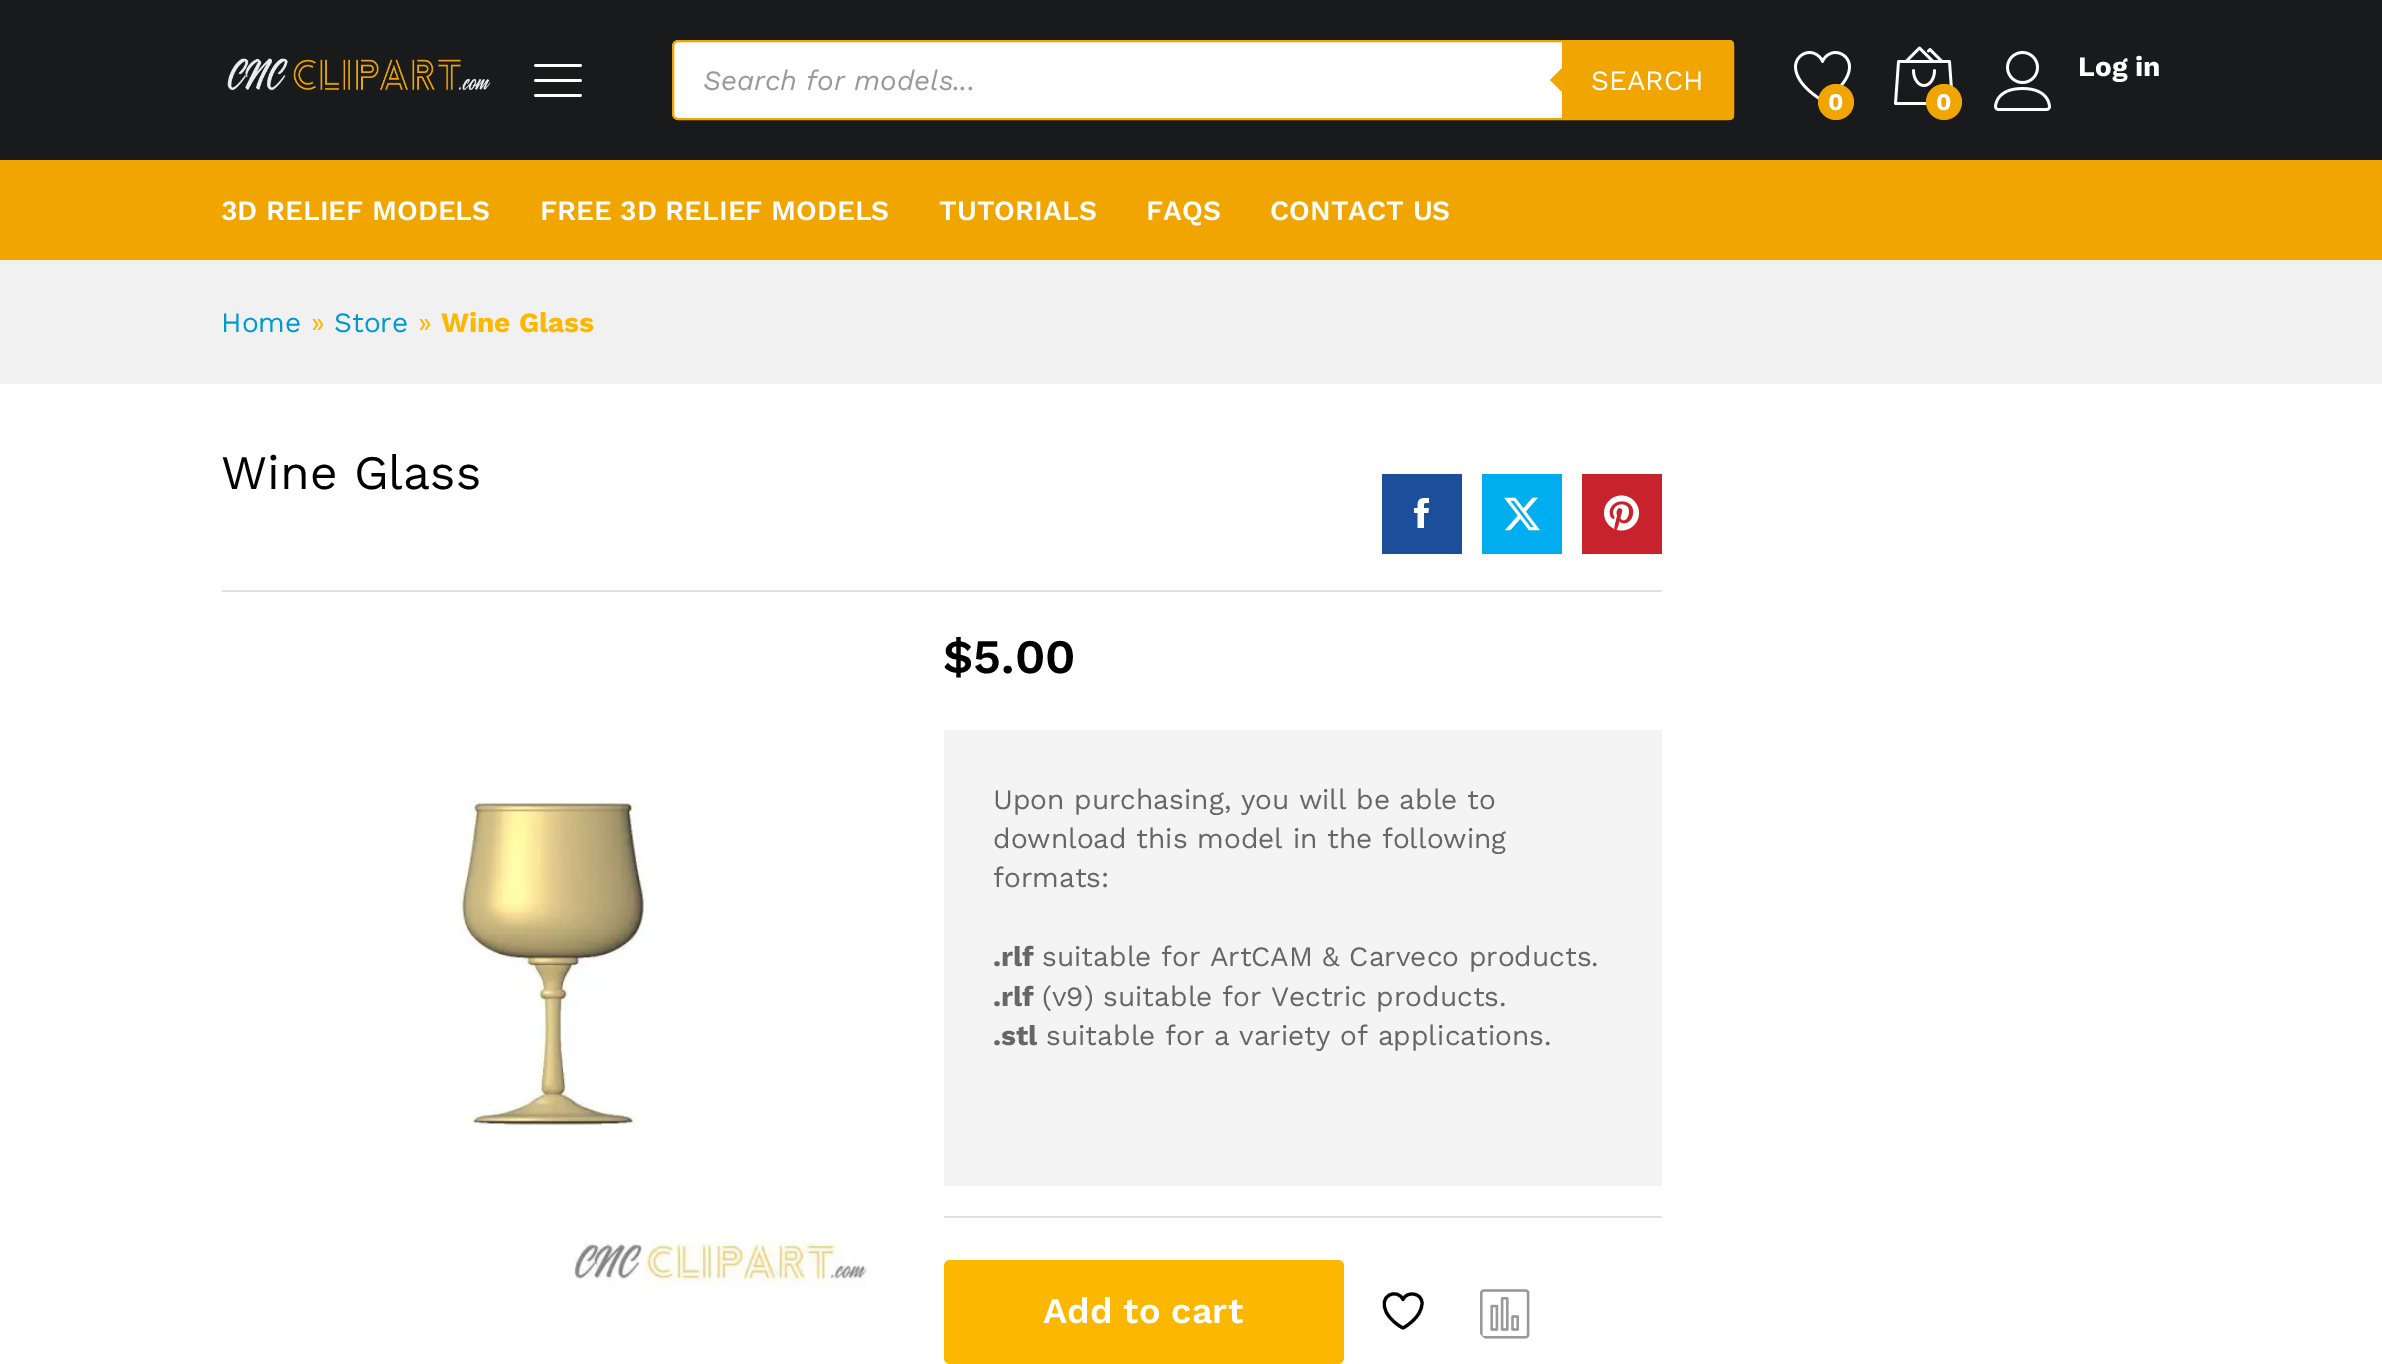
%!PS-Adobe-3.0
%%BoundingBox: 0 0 2382 1364
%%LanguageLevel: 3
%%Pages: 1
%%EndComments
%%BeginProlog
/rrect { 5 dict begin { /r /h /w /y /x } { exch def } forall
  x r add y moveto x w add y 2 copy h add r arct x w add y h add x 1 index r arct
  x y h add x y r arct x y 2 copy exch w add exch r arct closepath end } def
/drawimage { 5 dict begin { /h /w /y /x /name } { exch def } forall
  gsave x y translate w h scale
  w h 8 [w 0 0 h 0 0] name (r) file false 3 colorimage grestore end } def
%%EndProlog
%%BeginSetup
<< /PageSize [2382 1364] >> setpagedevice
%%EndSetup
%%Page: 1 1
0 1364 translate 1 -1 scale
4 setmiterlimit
1 setgray
0 0 2382 1364 rectfill
0.094 0.102 0.11 setrgbcolor
0 0 2382 160 rectfill
(images/1.raw) 227 58 264 33 drawimage
(images/2.raw) 534 64 48 33 drawimage
1 setgray
673 41 1060 78 5 rrect gsave fill grestore
0.945 0.647 0.004 setrgbcolor
2 setlinewidth
stroke
newpath 1562 40 moveto 1730 40 lineto 1732 40 1734 42 1734 44 curveto 1734 116 lineto 1734 118 1732 120 1730 120 curveto 1562 120 lineto closepath fill
newpath 1566 64 moveto 1566 96 lineto 1550 80 lineto closepath fill
(images/3.raw) 1994 51 57 60 drawimage
(images/4.raw) 1794 51 57 49 drawimage
newpath 1836 102 18 0 360 arc closepath fill
(images/5.raw) 1894 46 59 59 drawimage
newpath 1944 102 18 0 360 arc closepath fill
0 160 2382 100 rectfill
0.945 setgray
0 260 2382 124 rectfill
0.882 setgray
222 590 1440 2 rectfill
0.106 0.306 0.608 setrgbcolor
1382 474 80 80 rectfill
(images/6.raw) 1414 498 15 30 drawimage
0 0.682 0.937 setrgbcolor
1482 474 80 80 rectfill
(images/7.raw) 1504 497 36 34 drawimage
0.784 0.137 0.173 setrgbcolor
1582 474 80 80 rectfill
(images/8.raw) 1604 495 35 36 drawimage
(images/9.raw) 460 800 407 490 drawimage
0.882 setgray
944 1216 718 2 rectfill
0.957 setgray
944 730 718 456 rectfill
0.988 0.722 0 setrgbcolor
944 1260 400 104 6 rrect fill
0 setgray
3.1 setlinewidth
1 setlinecap
1 setlinejoin
newpath 1422 1303 moveto 1422 1293 1407 1290.5 1403 1299.5 curveto 1398 1288 1376.5 1294.5 1387 1313.5 curveto 1390.5 1319.5 1397 1325 1403 1328 curveto 1403 1328 1422 1318 1422 1303 curveto closepath stroke
(images/10.raw) 1480 1289 50 50 drawimage
/WorkSans-Italic [28 0 0 -28 0 0] selectfont
0.6 setgray
703 90 moveto (Search for models...) show
/WorkSans-Regular [28 0 0 -28 0 0] selectfont
1 setgray
1591 90 moveto (SEARCH) show
/WorkSans-Bold [28 0 0 -28 0 0] selectfont
2078 76 moveto (Log in) show
/WorkSans-Bold [24 0 0 -24 0 0] selectfont
1828 110 moveto (0) show
1936 110 moveto (0) show
/WorkSans-SemiBold [28 0 0 -28 0 0] selectfont
221 220 moveto (3D RELIEF MODELS) show
540 220 moveto (FREE 3D RELIEF MODELS) show
939 220 moveto (TUTORIALS) show
1146 220 moveto (FAQS) show
1270 220 moveto (CONTACT US) show
/WorkSans-Regular [28 0 0 -28 0 0] selectfont
0 0.6 0.8 setrgbcolor
221 332 moveto (Home) show
0.988 0.722 0 setrgbcolor
311 332 moveto (») show
0 0.6 0.8 setrgbcolor
334 332 moveto (Store) show
0.988 0.722 0 setrgbcolor
418 332 moveto (») show
/WorkSans-Bold [28 0 0 -28 0 0] selectfont
441 332 moveto (Wine Glass) show
/WorkSans-Regular [48 0 0 -48 0 0] selectfont
0 setgray
221 489 moveto (Wine Glass) show
/WorkSans-SemiBold [48 0 0 -48 0 0] selectfont
943 673 moveto ($5.00) show
/WorkSans-Regular [28 0 0 -28 0 0] selectfont
0.4 setgray
993 809 moveto (Upon purchasing, you will be able to) show
993 848 moveto (download this model in the following) show
993 887 moveto (formats:) show
/WorkSans-Bold [28 0 0 -28 0 0] selectfont
993 966 moveto (.rlf) show
/WorkSans-Regular [28 0 0 -28 0 0] selectfont
1042 966 moveto (suitable for ArtCAM & Carveco products.) show
/WorkSans-Bold [28 0 0 -28 0 0] selectfont
993 1006 moveto (.rlf) show
/WorkSans-Regular [28 0 0 -28 0 0] selectfont
1042 1006 moveto (\(v9\) suitable for Vectric products.) show
/WorkSans-Bold [28 0 0 -28 0 0] selectfont
993 1045 moveto (.stl) show
/WorkSans-Regular [28 0 0 -28 0 0] selectfont
1046 1045 moveto (suitable for a variety of applications.) show
/WorkSans-SemiBold [36 0 0 -36 0 0] selectfont
1 setgray
1043 1323 moveto (Add to cart) show
showpage
%%EOF
